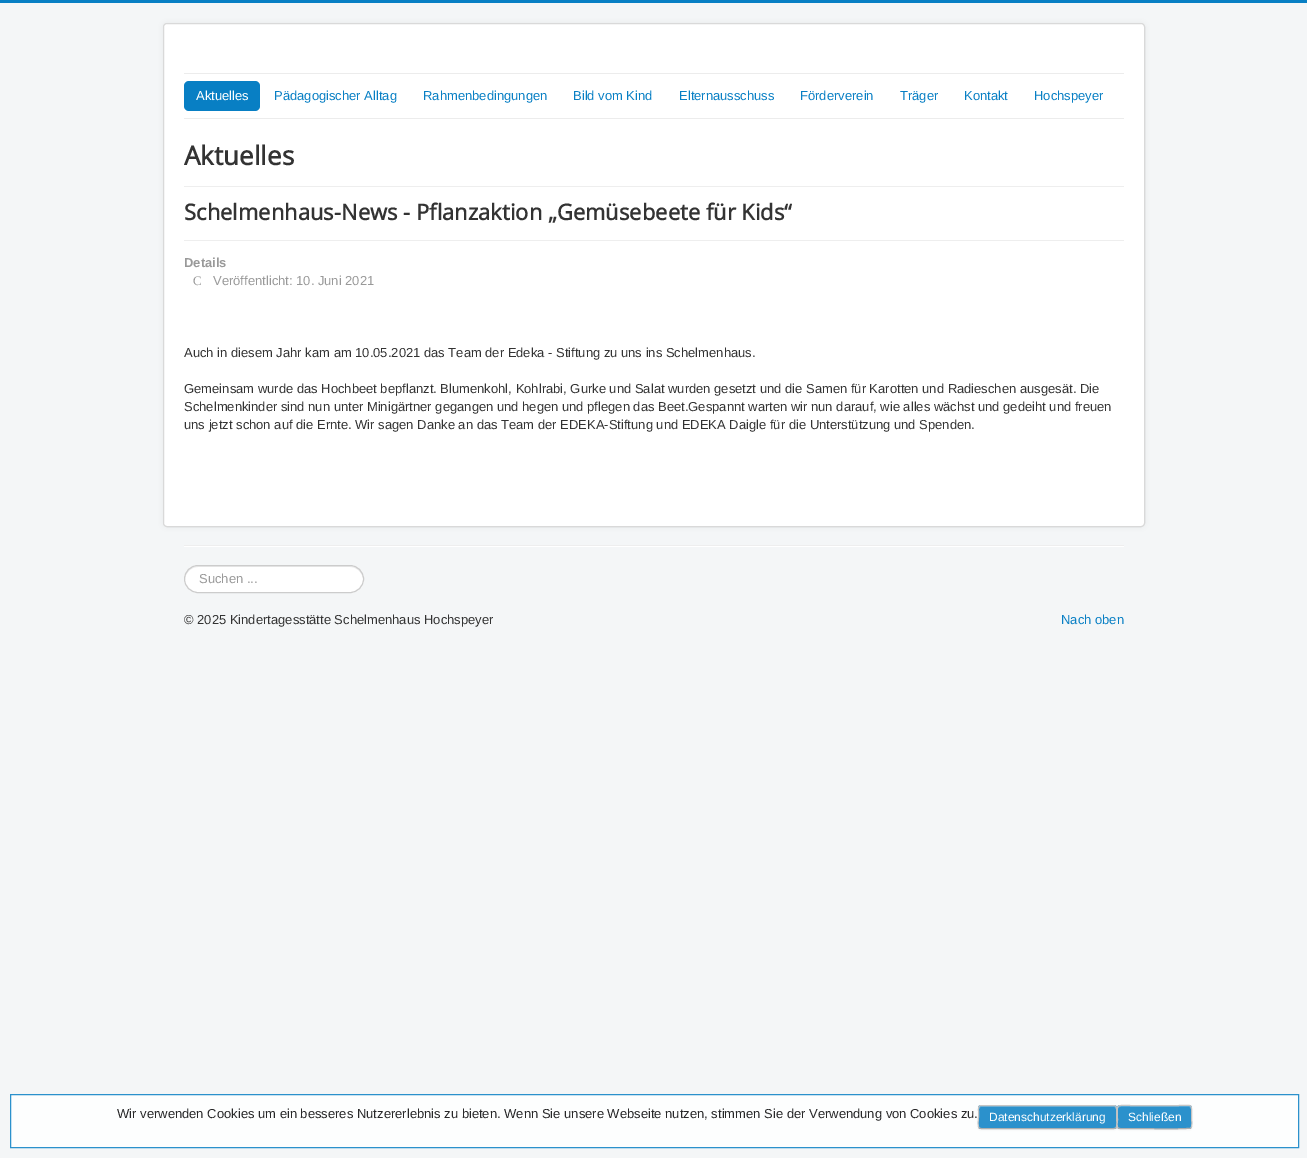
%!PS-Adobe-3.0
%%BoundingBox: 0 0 1307 1158
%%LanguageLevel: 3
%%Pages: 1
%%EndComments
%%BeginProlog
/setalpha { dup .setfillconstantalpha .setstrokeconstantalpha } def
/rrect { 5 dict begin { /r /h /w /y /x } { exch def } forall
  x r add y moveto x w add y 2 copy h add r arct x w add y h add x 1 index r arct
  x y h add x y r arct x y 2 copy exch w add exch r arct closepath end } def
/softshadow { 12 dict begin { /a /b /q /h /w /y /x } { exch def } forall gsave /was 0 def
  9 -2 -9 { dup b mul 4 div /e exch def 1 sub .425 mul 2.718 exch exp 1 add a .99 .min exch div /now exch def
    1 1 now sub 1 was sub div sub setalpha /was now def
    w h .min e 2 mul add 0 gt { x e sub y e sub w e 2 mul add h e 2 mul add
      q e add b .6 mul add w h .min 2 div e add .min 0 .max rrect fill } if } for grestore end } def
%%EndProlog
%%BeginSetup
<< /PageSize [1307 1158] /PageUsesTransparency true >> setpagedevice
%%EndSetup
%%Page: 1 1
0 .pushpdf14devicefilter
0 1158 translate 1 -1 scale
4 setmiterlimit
0.957 0.965 0.969 setrgbcolor
0 0 1307 1158 rectfill
0.031 0.498 0.769 setrgbcolor
0 0 1307 3 rectfill
0 setgray
163 23 982 504 4 3 0.05 softshadow
1 setgray
163 23 982 504 4 rrect fill
0.15 setalpha
0 setgray
163.5 23.5 981 503 3.5 rrect stroke
1 setalpha
0.925 setgray
184 73 940 1 rectfill
184 118 940 1 rectfill
0.031 0.498 0.769 setrgbcolor
184 81 76 30 5 rrect fill
0.933 setgray
184 186 940 1 rectfill
184 240 940 1 rectfill
184 545 940 1 rectfill
1 setgray
184 546 940 1 rectfill
184 565 180 28 14 rrect fill
0.925 setgray
newpath 198 567 moveto 350 567 lineto 357 567 363 573 363 580 curveto 364 560 334 566 325 566 curveto 223 566 lineto 214 566 184 560 185 580 curveto 185 573 191 567 198 567 curveto closepath fill
0.8 setgray
184.5 565.5 179 27 13.5 rrect stroke
0.992 0.996 0.996 setrgbcolor
newpath 10.5 1094.5 moveto 1298.5 1094.5 lineto 1298.5 1147.5 lineto 10.5 1147.5 lineto closepath gsave fill grestore
0.169 0.569 0.8 setrgbcolor
stroke
0.145 setgray
978 1106 139 24 3 1 0.05 softshadow
0.169 0.569 0.8 setrgbcolor
978 1105 139 24 3 rrect fill
0.333 0.655 0.839 setrgbcolor
newpath 981 1107 moveto 1114 1107 lineto 1115 1107 1116 1108 1116 1109 curveto 1116 1108 1116 1106 1114 1106 curveto 981 1106 lineto 979 1106 979 1108 979 1109 curveto 979 1108 980 1107 981 1107 curveto closepath fill
0.682 0.686 0.686 setrgbcolor
newpath 1116 1128 moveto 1114 1128.5 lineto 981 1128.5 lineto 979 1128 lineto stroke
0.769 setgray
newpath 979 1128 moveto 977.5 1126 978.5 1119 978.5 1117 curveto 978.5 1111 lineto 978.5 1109 978 1105.5 981 1105.5 curveto 1114 1105.5 lineto 1117 1105.5 1116.5 1109 1116.5 1111 curveto 1116.5 1117 lineto 1116.5 1119 1117.5 1126 1116 1128 curveto stroke
0.145 setgray
1117 1106 75 24 3 1 0.05 softshadow
0.169 0.569 0.8 setrgbcolor
1117 1105 75 24 3 rrect fill
0.333 0.655 0.839 setrgbcolor
newpath 1120 1107 moveto 1189 1107 lineto 1190 1107 1191 1108 1191 1109 curveto 1191 1103 1181 1106 1178 1106 curveto 1132 1106 lineto 1128 1106 1118 1103 1118 1109 curveto 1118 1108 1119 1107 1120 1107 curveto closepath fill
0.682 0.686 0.686 setrgbcolor
newpath 1191 1128 moveto 1190.5 1128 lineto 1188.5 1129.5 1138 1128.5 1131.5 1128.5 curveto 1120 1128.5 lineto 1118 1128 lineto stroke
0.769 setgray
newpath 1118 1128 moveto 1116.5 1126 1117.5 1122 1117.5 1120 curveto 1117.5 1103 1114.5 1105.5 1131.5 1105.5 curveto 1177.5 1105.5 lineto 1193.5 1105.5 1191.5 1102.5 1191.5 1117 curveto 1191.5 1119 1192.5 1126 1191 1128 curveto stroke
/LiberationSans-Regular [13 0 0 -13 0 0] selectfont
1 setgray
196 100 moveto (Aktuelles) show
0.031 0.498 0.769 setrgbcolor
274 100 moveto (Pädagogischer Alltag) show
423 100 moveto (Rahmenbedingungen) show
573 100 moveto (Bild vom Kind) show
679 100 moveto (Elternausschuss) show
800 100 moveto (Förderverein) show
900 100 moveto (Träger) show
964 100 moveto (Kontakt) show
1034 100 moveto (Hochspeyer) show
/OpenSans-Bold [26 0 0 -26 0 0] selectfont
0.2 setgray
184 165 moveto (Aktuelles) show
/OpenSans-Bold [22 0 0 -22 0 0] selectfont
184 220 moveto (Schelmenhaus-News - Pflanzaktion „Gemüsebeete für Kids“) show
/LiberationSans-Bold [13 0 0 -13 0 0] selectfont
0.6 setgray
184 267 moveto (Details) show
/LiberationSerif-Regular [13 0 0 -13 0 0] selectfont
193 285 moveto (C) show
/LiberationSans-Regular [13 0 0 -13 0 0] selectfont
213 285 moveto (Veröffentlicht: 10. Juni 2021) show
0.2 setgray
184 357 moveto (Auch in diesem Jahr kam am 10.05.2021 das Team der Edeka - Stiftung zu uns ins Schelmenhaus.) show
184 393 moveto (Gemeinsam wurde das Hochbeet bepflanzt. Blumenkohl, Kohlrabi, Gurke und Salat wurden gesetzt und die Samen für Karotten und Radieschen ausgesät. Die) show
184 411 moveto (Schelmenkinder sind nun unter Minigärtner gegangen und hegen und pflegen das Beet.Gespannt warten wir nun darauf, wie alles wächst und gedeiht und freuen) show
184 429 moveto (uns jetzt schon auf die Ernte. Wir sagen Danke an das Team der EDEKA-Stiftung und EDEKA Daigle für die Unterstützung und Spenden.) show
0.6 setgray
199 583 moveto (Suchen ...) show
0.2 setgray
184 624 moveto (© 2025 Kindertagesstätte Schelmenhaus Hochspeyer) show
0.031 0.498 0.769 setrgbcolor
1061 624 moveto (Nach oben) show
0.153 0.153 0.157 setrgbcolor
117 1118 moveto (Wir verwenden Cookies um ein besseres Nutzererlebnis zu bieten. Wenn Sie unsere Webseite nutzen, stimmen Sie der Verwendung von Cookies zu.) show
/LiberationSans-Regular [12 0 0 -12 0 0] selectfont
1 setgray
989 1121 moveto (Datenschutzerklärung) show
1128 1121 moveto (Schließen) show
.poppdf14devicefilter showpage
%%EOF
